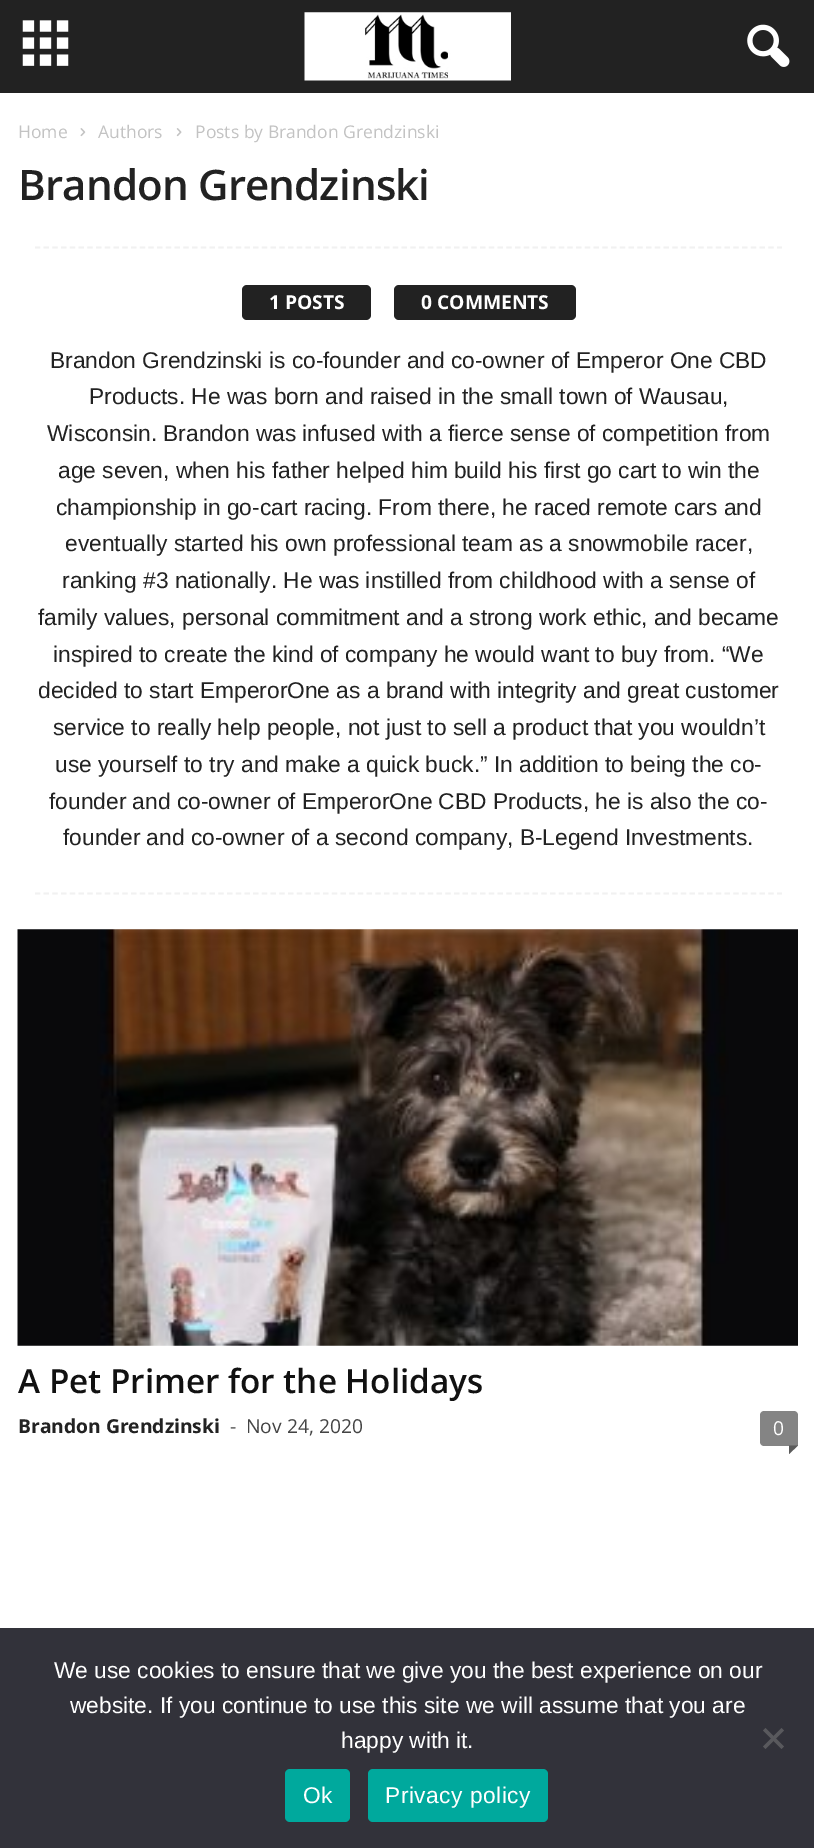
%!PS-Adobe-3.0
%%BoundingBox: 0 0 814 1848
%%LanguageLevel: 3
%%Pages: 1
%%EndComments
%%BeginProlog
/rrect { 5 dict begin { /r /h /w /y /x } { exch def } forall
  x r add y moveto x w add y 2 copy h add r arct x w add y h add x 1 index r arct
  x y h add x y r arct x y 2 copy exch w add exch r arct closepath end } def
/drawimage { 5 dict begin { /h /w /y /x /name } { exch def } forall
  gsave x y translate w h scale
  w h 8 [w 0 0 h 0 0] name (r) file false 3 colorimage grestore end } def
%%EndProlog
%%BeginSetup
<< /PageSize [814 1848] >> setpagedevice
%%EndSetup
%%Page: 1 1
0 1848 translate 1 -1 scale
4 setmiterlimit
1 setgray
0 0 814 1848 rectfill
0.133 setgray
0 0 814 93 rectfill
(images/1.raw) 22 20 47 46 drawimage
(images/2.raw) 304 12 207 69 drawimage
(images/3.raw) 747 24 43 43 drawimage
(images/4.raw) 80 128 6 9 drawimage
(images/5.raw) 176 128 6 9 drawimage
0.945 setgray
1.8 setlinewidth
[5.25 3.48] 0 setdash
newpath 35 247.5 moveto 782 247.5 lineto stroke
newpath 35 893.5 moveto 782 893.5 lineto stroke
0.133 setgray
242 285 129 35 5 rrect fill
394 285 182 35 5 rrect fill
(images/6.raw) 17 929 781 417 drawimage
0.518 setgray
newpath 764 1411 moveto 794 1411 lineto 796 1411 798 1413 798 1415 curveto 798 1446 lineto 764 1446 lineto 762 1446 760 1444 760 1442 curveto 760 1415 lineto 760 1413 762 1411 764 1411 curveto closepath fill
0.357 setgray
newpath 789 1445.5 moveto 798 1445.5 lineto 789 1454 lineto closepath fill
0.196 0.196 0.227 setrgbcolor
0 1628 814 220 rectfill
0.349 0.349 0.365 setrgbcolor
newpath 781.5 1728 moveto 784 1730.5 lineto 765.5 1749 lineto 763 1746.5 lineto closepath fill
newpath 763 1730.5 moveto 765.5 1728 lineto 784 1746.5 lineto 781.5 1749 lineto closepath fill
0 0.663 0.616 setrgbcolor
285 1769 65 53 5 rrect fill
368 1769 180 53 5 rrect fill
/OpenSans-Regular [17.5 0 0 -17.5 0 0] selectfont
0.765 setgray
18 138 moveto (Home) show
98 138 moveto (Authors) show
195 138 moveto (Posts by Brandon Grendzinski) show
/OpenSans-SemiBold [42 0 0 -42 0 0] selectfont
0.133 setgray
18 200 moveto -0.8 0 (Brandon Grendzinski) ashow
/OpenSans-Bold [19.25 0 0 -19.25 0 0] selectfont
1 setgray
269 309 moveto (1 POSTS) show
421 309 moveto (0 COMMENTS) show
/LiberationSans-Regular [22.75 0 0 -22.75 0 0] selectfont
0.133 setgray
50 368 moveto (Brandon Grendzinski is co-founder and co-owner of Emperor One CBD) show
89 404 moveto (Products. He was born and raised in the small town of Wausau,) show
47 441 moveto (Wisconsin. Brandon was infused with a fierce sense of competition from) show
58 478 moveto (age seven, when his father helped him build his first go cart to win the) show
56 515 moveto (championship in go-cart racing. From there, he raced remote cars and) show
65 551 moveto (eventually started his own professional team as a snowmobile racer,) show
62 588 moveto (ranking #3 nationally. He was instilled from childhood with a sense of) show
38 625 moveto (family values, personal commitment and a strong work ethic, and became) show
53 662 moveto (inspired to create the kind of company he would want to buy from. “We) show
38 698 moveto (decided to start EmperorOne as a brand with integrity and great customer) show
53 735 moveto (service to really help people, not just to sell a product that you wouldn’t) show
55 772 moveto (use yourself to try and make a quick buck.” In addition to being the co-) show
49 809 moveto (founder and co-owner of EmperorOne CBD Products, he is also the co-) show
63 845 moveto (founder and co-owner of a second company, B-Legend Investments.) show
/OpenSans-SemiBold [33.25 0 0 -33.25 0 0] selectfont
0.067 setgray
18 1393 moveto (A Pet Primer for the Holidays) show
/OpenSans-Bold [19.25 0 0 -19.25 0 0] selectfont
0.133 setgray
18 1433 moveto (Brandon Grendzinski) show
/OpenSans-Regular [19.25 0 0 -19.25 0 0] selectfont
0.267 setgray
230 1433 moveto (-) show
246 1433 moveto (Nov 24, 2020) show
1 setgray
773 1435 moveto (0) show
/LiberationSans-Regular [22.75 0 0 -22.75 0 0] selectfont
54 1678 moveto (We use cookies to ensure that we give you the best experience on our) show
70 1713 moveto (website. If you continue to use this site we will assume that you are) show
341 1748 moveto (happy with it.) show
303 1803 moveto 0.5 0 (Ok) ashow
385 1803 moveto 0.5 0 (Privacy policy) ashow
showpage
%%EOF
